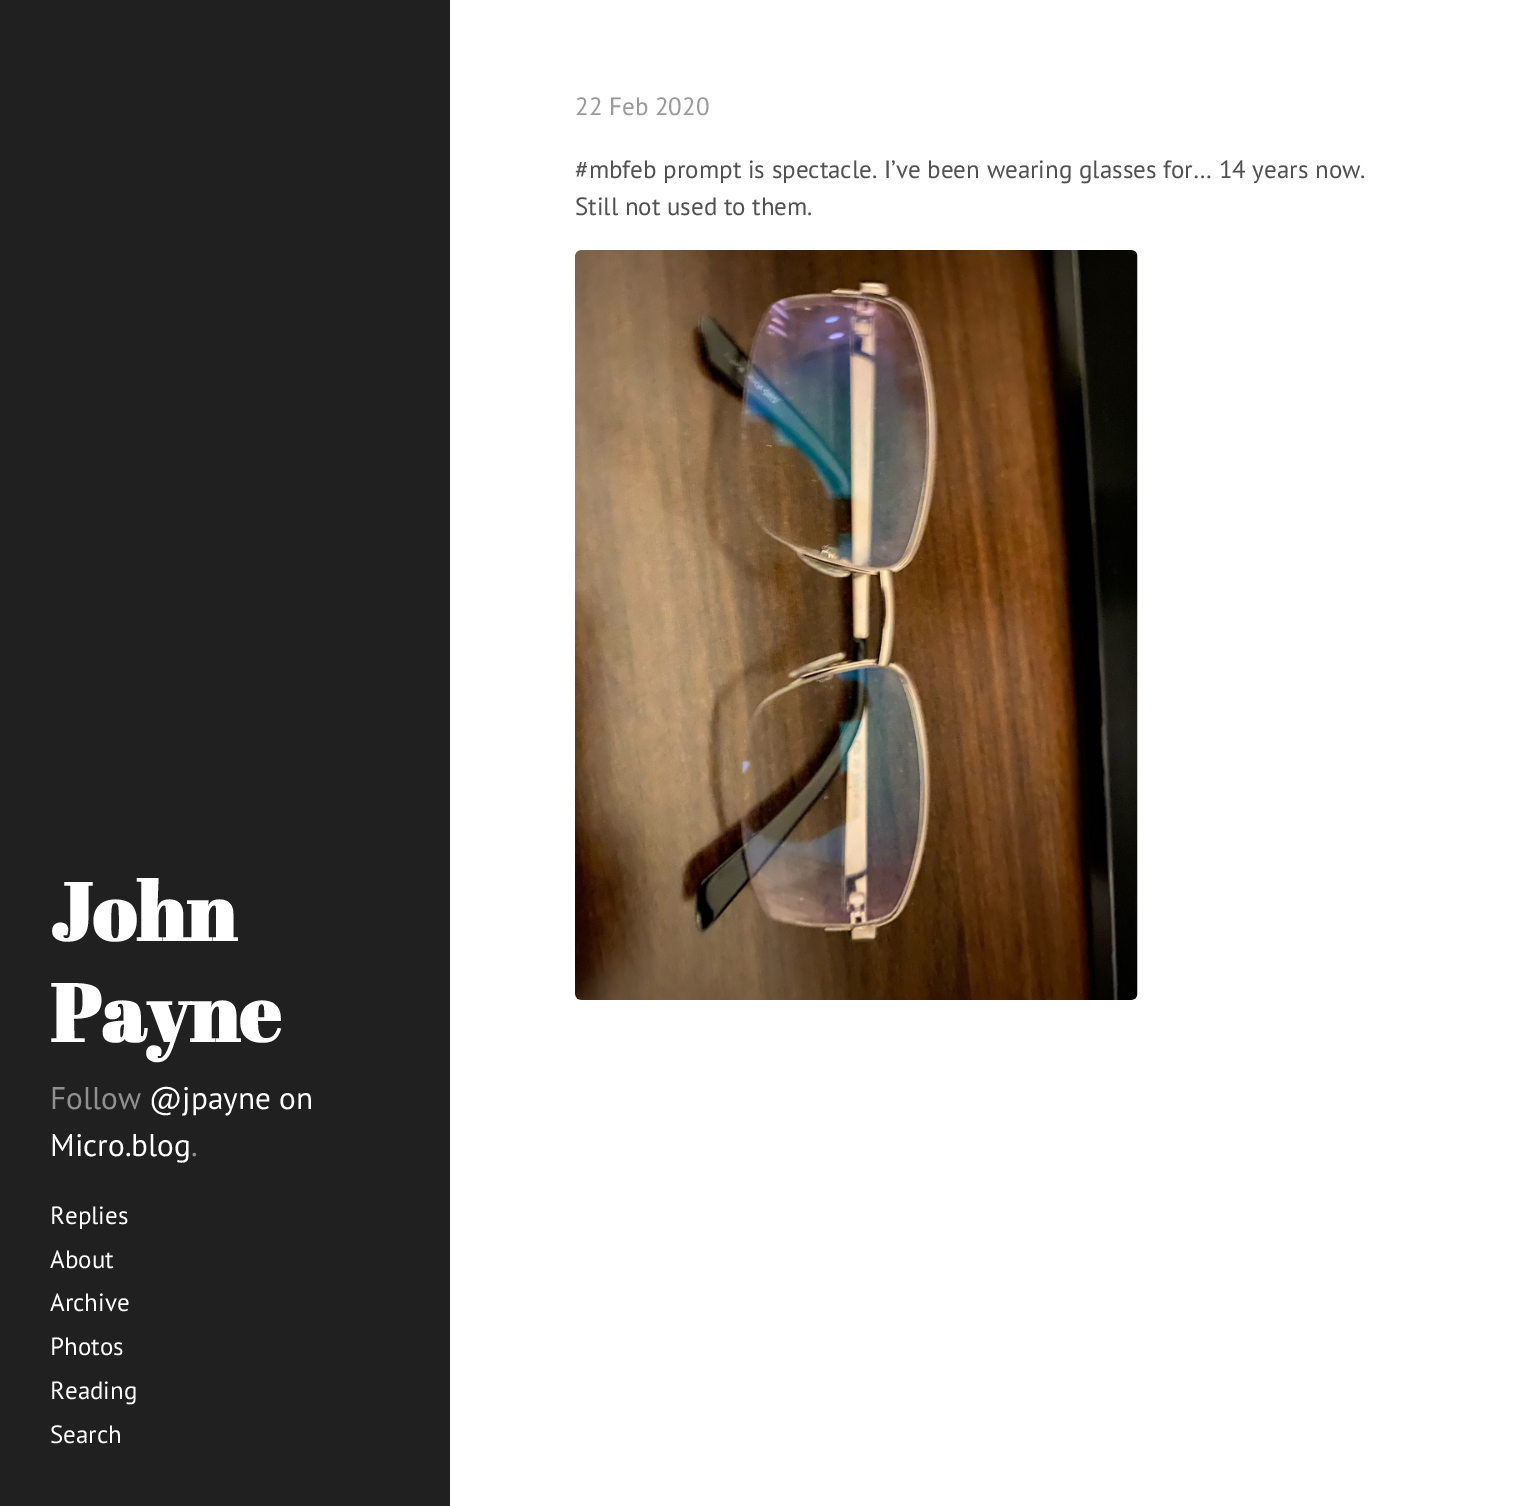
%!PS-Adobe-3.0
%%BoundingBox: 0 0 1514 1506
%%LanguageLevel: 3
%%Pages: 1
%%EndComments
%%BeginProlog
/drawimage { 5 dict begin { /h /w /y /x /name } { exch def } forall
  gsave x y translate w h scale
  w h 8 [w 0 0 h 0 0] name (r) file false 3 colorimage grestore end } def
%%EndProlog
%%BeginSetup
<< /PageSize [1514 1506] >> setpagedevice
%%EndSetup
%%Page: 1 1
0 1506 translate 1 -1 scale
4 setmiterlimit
1 setgray
0 0 1514 1506 rectfill
(images/1.raw) 575 250 563 750 drawimage
0.125 setgray
0 0 450 1506 rectfill
/PTSans-Regular [25 0 0 -25 0 0] selectfont
0.604 setgray
575 115 moveto (22 Feb 2020) show
0.318 setgray
575 178 moveto (#mbfeb prompt is spectacle. I’ve been wearing glasses for… 14 years now.) show
575 215 moveto (Still not used to them.) show
/AbrilFatface-Bold [81 0 0 -81 0 0] selectfont
1 setgray
50 941 moveto (John) show
50 1042 moveto (Payne) show
/PTSans-Regular [31.25 0 0 -31.25 0 0] selectfont
0.565 setgray
50 1109 moveto (Follow) show
1 setgray
149 1109 moveto (@jpayne on) show
50 1156 moveto (Micro.blog) show
0.565 setgray
191 1156 moveto (.) show
/PTSans-Regular [25 0 0 -25 0 0] selectfont
1 setgray
50 1224 moveto (Replies) show
50 1268 moveto (About) show
50 1311 moveto (Archive) show
50 1355 moveto (Photos) show
50 1399 moveto (Reading) show
50 1443 moveto (Search) show
showpage
%%EOF
